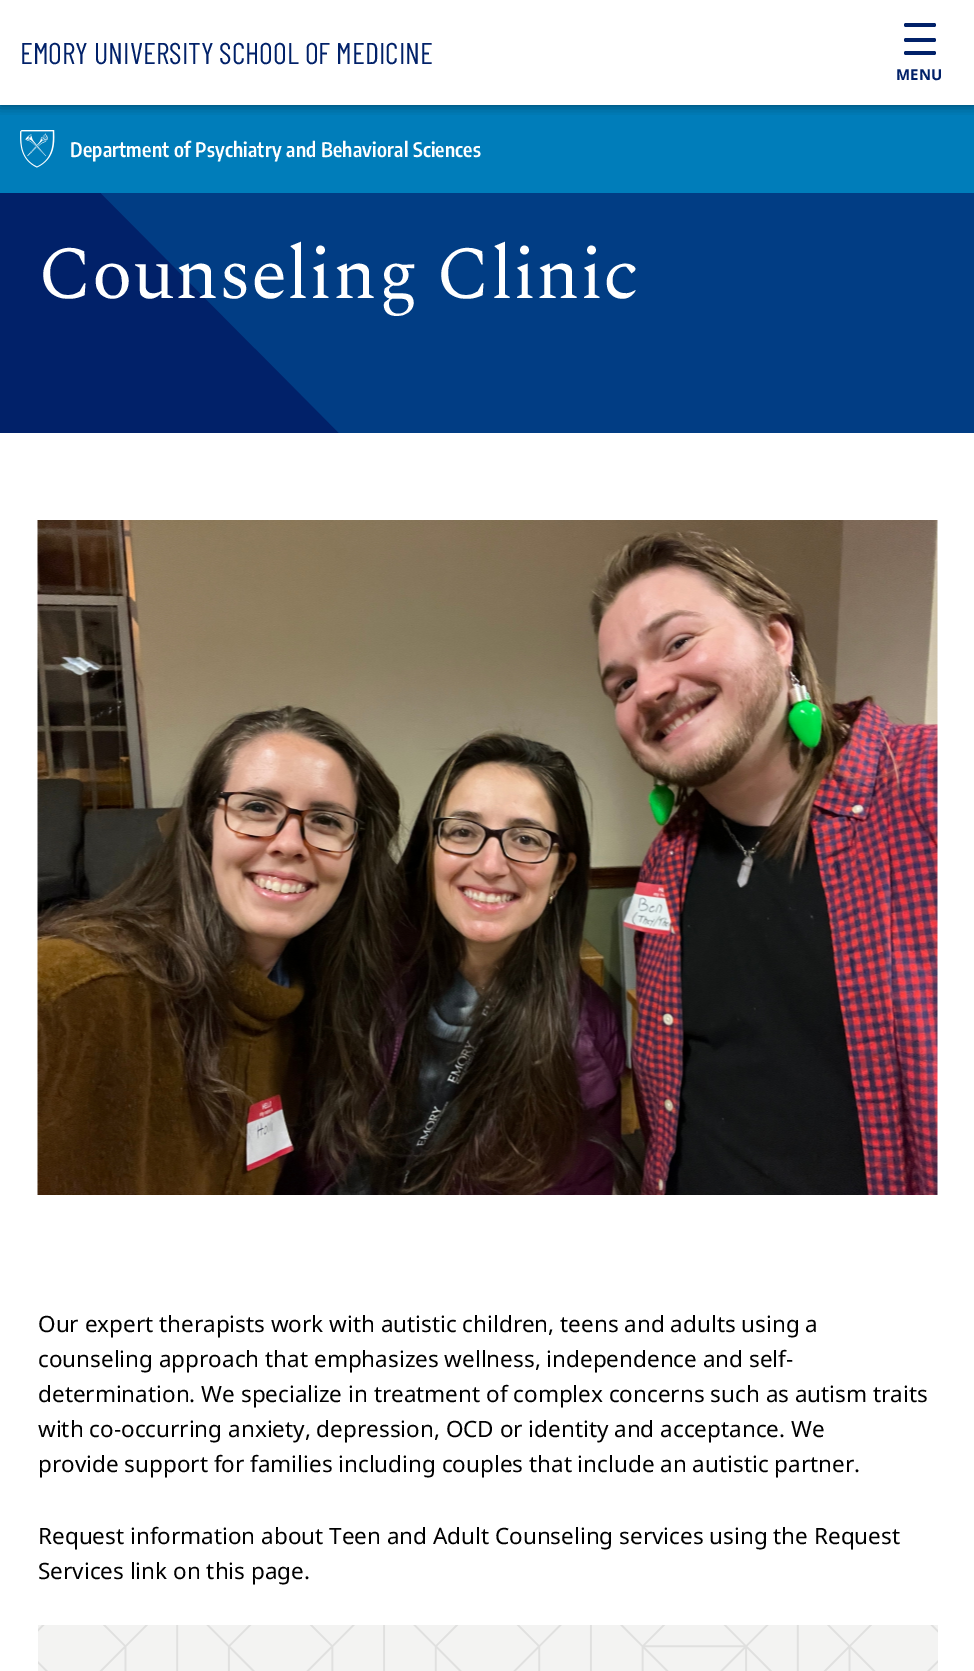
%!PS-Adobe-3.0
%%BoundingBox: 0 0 974 1671
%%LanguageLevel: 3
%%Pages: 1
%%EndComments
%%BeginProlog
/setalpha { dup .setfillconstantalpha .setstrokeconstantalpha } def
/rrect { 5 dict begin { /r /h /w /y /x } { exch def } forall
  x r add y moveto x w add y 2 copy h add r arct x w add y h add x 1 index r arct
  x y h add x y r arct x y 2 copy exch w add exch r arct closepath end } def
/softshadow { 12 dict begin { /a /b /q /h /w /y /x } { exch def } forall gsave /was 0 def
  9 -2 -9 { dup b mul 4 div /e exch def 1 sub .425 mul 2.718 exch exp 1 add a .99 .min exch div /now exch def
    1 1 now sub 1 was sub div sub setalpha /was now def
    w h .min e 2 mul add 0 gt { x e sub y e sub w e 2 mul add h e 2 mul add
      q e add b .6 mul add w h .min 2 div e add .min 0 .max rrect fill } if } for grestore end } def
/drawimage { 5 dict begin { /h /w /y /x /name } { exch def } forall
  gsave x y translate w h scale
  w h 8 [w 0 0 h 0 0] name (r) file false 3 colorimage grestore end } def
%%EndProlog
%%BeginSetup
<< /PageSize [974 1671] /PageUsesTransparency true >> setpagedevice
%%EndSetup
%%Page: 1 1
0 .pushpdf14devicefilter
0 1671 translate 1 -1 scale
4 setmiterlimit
1 setgray
0 0 974 1671 rectfill
0 0.49 0.729 setrgbcolor
0 105 974 88 rectfill
gsave
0 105 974 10 rectclip
0 setgray
0 0 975 105 0 6 0.5 softshadow
grestore
0.004 0.129 0.412 setrgbcolor
904 23 32 4 2 rrect fill
904 38 32 4 2 rrect fill
904 51 32 4 2 rrect fill
(images/1.raw) 20 130 35 38 drawimage
0 193 974 240 rectfill
(images/2.raw) 101 193 873 240 drawimage
(images/3.raw) 37 520 901 675 drawimage
0.953 0.953 0.949 setrgbcolor
38 1625 900 46 rectfill
(images/4.raw) 38 1625 900 46 drawimage
/BarlowCondensed-Regular [30 0 0 -30 0 0] selectfont
0.004 0.129 0.412 setrgbcolor
20 64 moveto (EMORY UNIVERSITY SCHOOL OF MEDICINE) show
/NotoSans-Bold [15 0 0 -15 0 0] selectfont
896 80 moveto (MENU) show
/EncodeSansCondensed-SemiBold [20 0 0 -20 0 0] selectfont
1 setgray
70 157 moveto 0.2 0 (Department of Psychiatry and Behavioral Sciences) ashow
/Spectral-Regular [75 0 0 -75 0 0] selectfont
38 298 moveto (Counseling Clinic) show
/NotoSans-Regular [22.5 0 0 -22.5 0 0] selectfont
0 setgray
38 1332 moveto (Our expert therapists work with autistic children, teens and adults using a) show
38 1367 moveto (counseling approach that emphasizes wellness, independence and self-) show
38 1402 moveto (determination. We specialize in treatment of complex concerns such as autism traits) show
38 1437 moveto (with co-occurring anxiety, depression, OCD or identity and acceptance. We) show
38 1472 moveto (provide support for families including couples that include an autistic partner.) show
38 1544 moveto (Request information about Teen and Adult Counseling services using the Request) show
38 1579 moveto (Services link on this page.) show
.poppdf14devicefilter showpage
%%EOF
